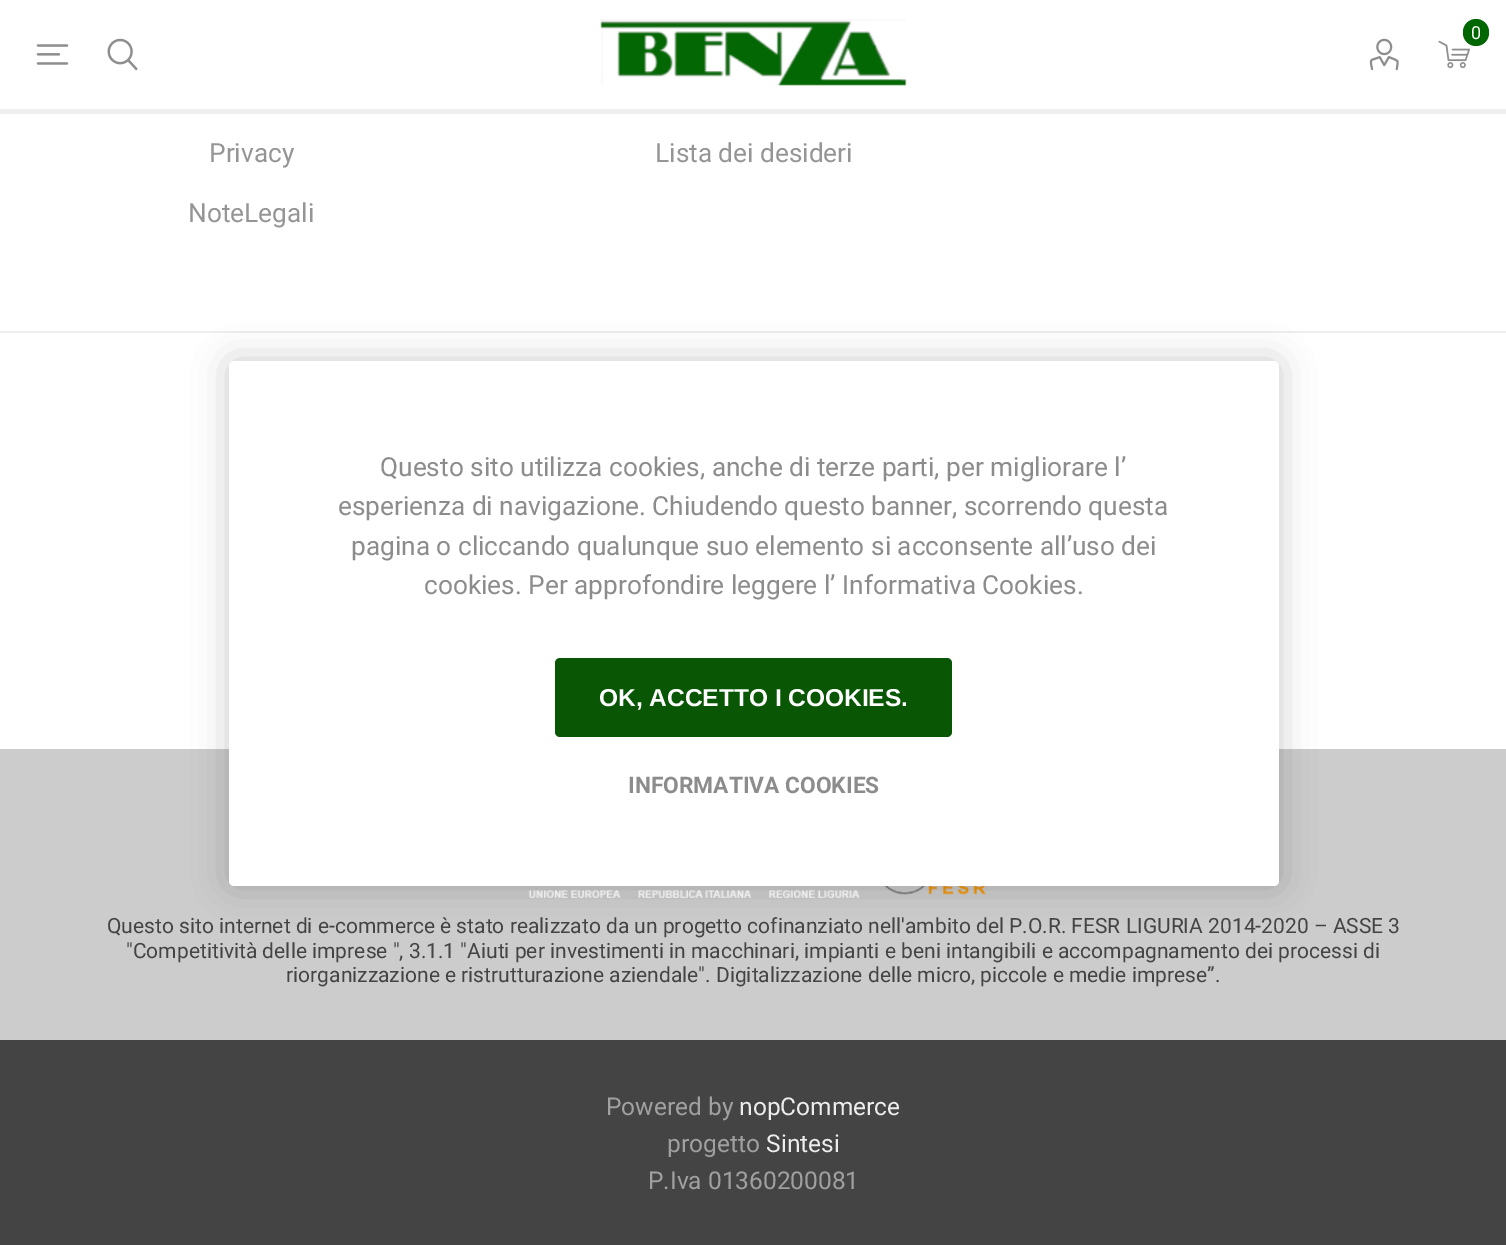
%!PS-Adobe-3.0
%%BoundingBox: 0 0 1506 1245
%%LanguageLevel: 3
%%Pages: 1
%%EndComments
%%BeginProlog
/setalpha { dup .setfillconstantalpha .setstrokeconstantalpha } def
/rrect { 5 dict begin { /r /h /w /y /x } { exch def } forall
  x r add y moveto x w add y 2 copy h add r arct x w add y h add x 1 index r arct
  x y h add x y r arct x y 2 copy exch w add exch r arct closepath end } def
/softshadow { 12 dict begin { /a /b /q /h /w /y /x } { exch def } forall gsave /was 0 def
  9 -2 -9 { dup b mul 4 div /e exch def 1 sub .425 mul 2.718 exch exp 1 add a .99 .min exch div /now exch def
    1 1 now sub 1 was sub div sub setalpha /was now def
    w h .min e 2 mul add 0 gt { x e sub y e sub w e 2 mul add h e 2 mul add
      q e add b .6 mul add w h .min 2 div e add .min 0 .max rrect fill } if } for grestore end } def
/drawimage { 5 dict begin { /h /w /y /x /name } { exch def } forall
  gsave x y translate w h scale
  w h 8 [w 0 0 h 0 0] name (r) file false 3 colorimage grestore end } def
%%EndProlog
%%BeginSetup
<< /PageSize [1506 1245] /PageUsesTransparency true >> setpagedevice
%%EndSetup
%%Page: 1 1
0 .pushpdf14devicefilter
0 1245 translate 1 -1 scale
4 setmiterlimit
1 setgray
0 0 1506 1245 rectfill
0.933 setgray
0 109 1506 5 rectfill
(images/1.raw) 600 19 307 67 drawimage
(images/2.raw) 1438 40 32 29 drawimage
0 0.4 0.004 setrgbcolor
1463 19 26 27 13 rrect fill
(images/3.raw) 36 44 33 21 drawimage
(images/4.raw) 107 38 31 33 drawimage
(images/5.raw) 1369 38 30 33 drawimage
0.933 setgray
0 331 1506 2 rectfill
0.8 setgray
0 749 1506 291 rectfill
(images/6.raw) 528 890 93 8 drawimage
(images/7.raw) 638 890 113 8 drawimage
(images/8.raw) 769 890 91 8 drawimage
(images/9.raw) 884 886 102 9 drawimage
0.267 setgray
0 1040 1506 205 rectfill
0 setgray
229 361 1050 525 5 17.5 0.2 softshadow
1 setgray
229 361 1050 525 5 rrect fill
0.035 0.341 0.016 setrgbcolor
555 658 397 79 5 rrect fill
/Roboto-Regular [18 0 0 -18 0 0] selectfont
1 setgray
1471 39 moveto (0) show
/Roboto-Regular [26.25 0 0 -26.25 0 0] selectfont
0.584 setgray
209 162 moveto (Privacy) show
188 222 moveto (NoteLegali) show
655 162 moveto (Lista dei desideri) show
/Roboto-Regular [21 0 0 -21 0 0] selectfont
0.267 setgray
107 933 moveto (Questo sito internet di e-commerce è stato realizzato da un progetto cofinanziato nell'ambito del P.O.R. FESR LIGURIA 2014-2020 – ASSE 3) show
126 958 moveto ("Competitività delle imprese ", 3.1.1 "Aiuti per investimenti in macchinari, impianti e beni intangibili e accompagnamento dei processi di) show
286 982 moveto (riorganizzazione e ristrutturazione aziendale". Digitalizzazione delle micro, piccole e medie imprese”.) show
/Roboto-Regular [24.5 0 0 -24.5 0 0] selectfont
0.627 setgray
606 1115 moveto (Powered by) show
0.929 setgray
739 1115 moveto (nopCommerce) show
0.627 setgray
667 1152 moveto (progetto) show
0.929 setgray
766 1152 moveto (Sintesi) show
0.627 setgray
648 1189 moveto (P.Iva 01360200081) show
/Roboto-Regular [26.25 0 0 -26.25 0 0] selectfont
0.549 setgray
380 476 moveto (Questo sito utilizza cookies, anche di terze parti, per migliorare l’) show
338 515 moveto (esperienza di navigazione. Chiudendo questo banner, scorrendo questa) show
351 555 moveto (pagina o cliccando qualunque suo elemento si acconsente all’uso dei) show
424 594 moveto (cookies. Per approfondire leggere l’ Informativa Cookies.) show
/LiberationSans-Bold [24.5 0 0 -24.5 0 0] selectfont
1 setgray
599 706 moveto (OK, ACCETTO I COOKIES.) show
/Roboto-Bold [22.75 0 0 -22.75 0 0] selectfont
0.549 setgray
628 793 moveto (INFORMATIVA COOKIES) show
.poppdf14devicefilter showpage
%%EOF
